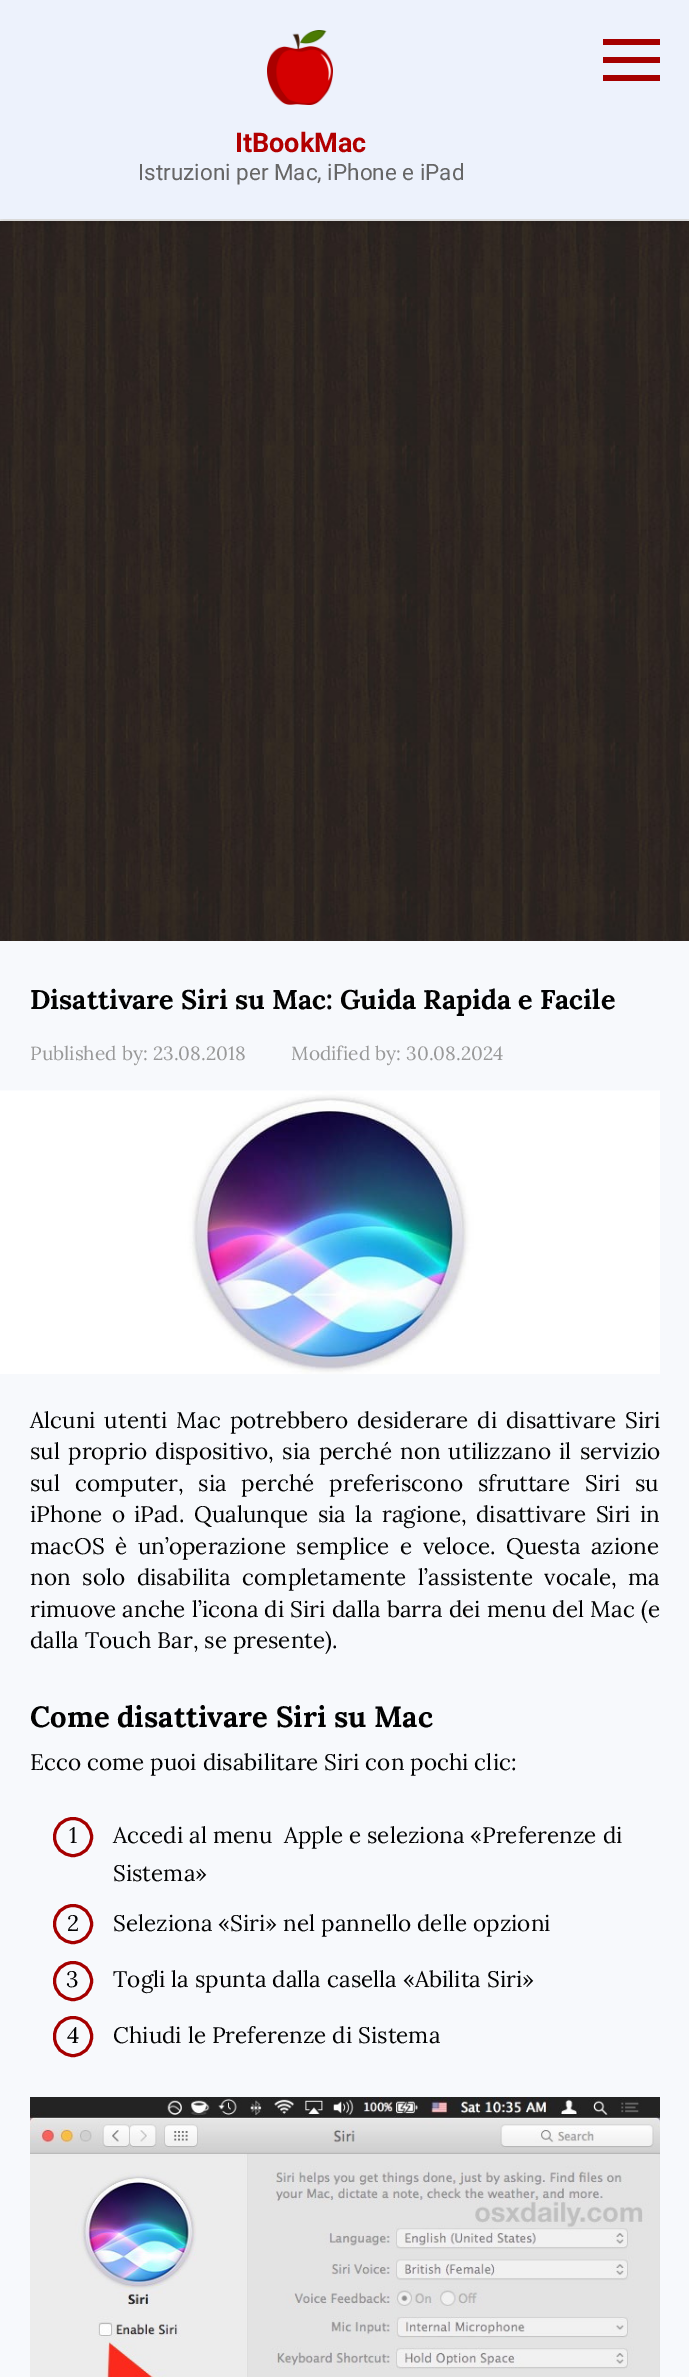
%!PS-Adobe-3.0
%%BoundingBox: 0 0 689 2377
%%LanguageLevel: 3
%%Pages: 1
%%EndComments
%%BeginProlog
/setalpha { dup .setfillconstantalpha .setstrokeconstantalpha } def
/rrect { 5 dict begin { /r /h /w /y /x } { exch def } forall
  x r add y moveto x w add y 2 copy h add r arct x w add y h add x 1 index r arct
  x y h add x y r arct x y 2 copy exch w add exch r arct closepath end } def
/softshadow { 12 dict begin { /a /b /q /h /w /y /x } { exch def } forall gsave /was 0 def
  9 -2 -9 { dup b mul 4 div /e exch def 1 sub .425 mul 2.718 exch exp 1 add a .99 .min exch div /now exch def
    1 1 now sub 1 was sub div sub setalpha /was now def
    w h .min e 2 mul add 0 gt { x e sub y e sub w e 2 mul add h e 2 mul add
      q e add b .6 mul add w h .min 2 div e add .min 0 .max rrect fill } if } for grestore end } def
/drawimage { 5 dict begin { /h /w /y /x /name } { exch def } forall
  gsave x y translate w h scale
  w h 8 [w 0 0 h 0 0] name (r) file false 3 colorimage grestore end } def
%%EndProlog
%%BeginSetup
<< /PageSize [689 2377] /PageUsesTransparency true >> setpagedevice
%%EndSetup
%%Page: 1 1
0 .pushpdf14devicefilter
0 2377 translate 1 -1 scale
4 setmiterlimit
1 setgray
0 0 689 2377 rectfill
(images/1.raw) 0 221 689 720 drawimage
0.925 setgray
0 219 689 2 rectfill
0 setgray
0 5 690 219 0 4 0.1 softshadow
0.929 0.949 0.988 setrgbcolor
0 0 689 219 rectfill
0.647 0 0 setrgbcolor
603 39 57 6 rectfill
603 75 57 6 rectfill
603 57 57 6 rectfill
(images/2.raw) 267 30 66 75 drawimage
0.969 0.976 0.988 setrgbcolor
0 941 689 1436 rectfill
(images/3.raw) 0 1090 660 284 drawimage
0.647 0 0 setrgbcolor
3 setlinewidth
newpath 73 1837 18.5 0 360 arc closepath stroke
newpath 73 1924 18.5 0 360 arc closepath stroke
newpath 73 1981 18.5 0 360 arc closepath stroke
54.5 2017.5 37 38 18.5 rrect stroke
(images/4.raw) 30 2097 630 280 drawimage
/Roboto-Bold [27 0 0 -27 0 0] selectfont
0.698 0 0 setrgbcolor
235 152 moveto (ItBookMac) show
/Roboto-Regular [22.5 0 0 -22.5 0 0] selectfont
0.4 setgray
138 180 moveto (Istruzioni per Mac, iPhone e iPad) show
/Lora-Bold [27 0 0 -27 0 0] selectfont
0.008 setgray
30 1009 moveto (Disattivare Siri su Mac: Guida Rapida e Facile) show
/Lora-Regular [19.1 0 0 -19.1 0 0] selectfont
0.6 setgray
30 1060 moveto (Published by: 23.08.2018) show
291 1060 moveto (Modified by: 30.08.2024) show
/Lora-Regular [22.5 0 0 -22.5 0 0] selectfont
0.008 setgray
30 1428 moveto 3 0 32 (Alcuni utenti Mac potrebbero desiderare di disattivare Siri) widthshow
30 1459 moveto 2.25 0 32 (sul proprio dispositivo, sia perché non utilizzano il servizio) widthshow
30 1491 moveto 9 0 32 (sul computer, sia perché preferiscono sfruttare Siri su) widthshow
30 1522 moveto 3.25 0 32 (iPhone o iPad. Qualunque sia la ragione, disattivare Siri in) widthshow
30 1554 moveto 4.75 0 32 (macOS è un’operazione semplice e veloce. Questa azione) widthshow
30 1585 moveto 5.75 0 32 (non solo disabilita completamente l’assistente vocale, ma) widthshow
30 1617 moveto 0.25 0 32 (rimuove anche l’icona di Siri dalla barra dei menu del Mac \(e) widthshow
30 1648 moveto (dalla Touch Bar, se presente\).) show
/Lora-Bold [29.25 0 0 -29.25 0 0] selectfont
30 1727 moveto (Come disattivare Siri su Mac) show
/Lora-Regular [22.5 0 0 -22.5 0 0] selectfont
30 1770 moveto (Ecco come puoi disabilitare Siri con pochi clic:) show
69 1843 moveto (1) show
113 1843 moveto (Accedi al menu  Apple e seleziona «Preferenze di) show
113 1881 moveto (Sistema») show
67 1931 moveto (2) show
113 1931 moveto (Seleziona «Siri» nel pannello delle opzioni) show
66 1987 moveto (3) show
113 1987 moveto (Togli la spunta dalla casella «Abilita Siri») show
67 2043 moveto (4) show
113 2043 moveto (Chiudi le Preferenze di Sistema) show
.poppdf14devicefilter showpage
%%EOF
